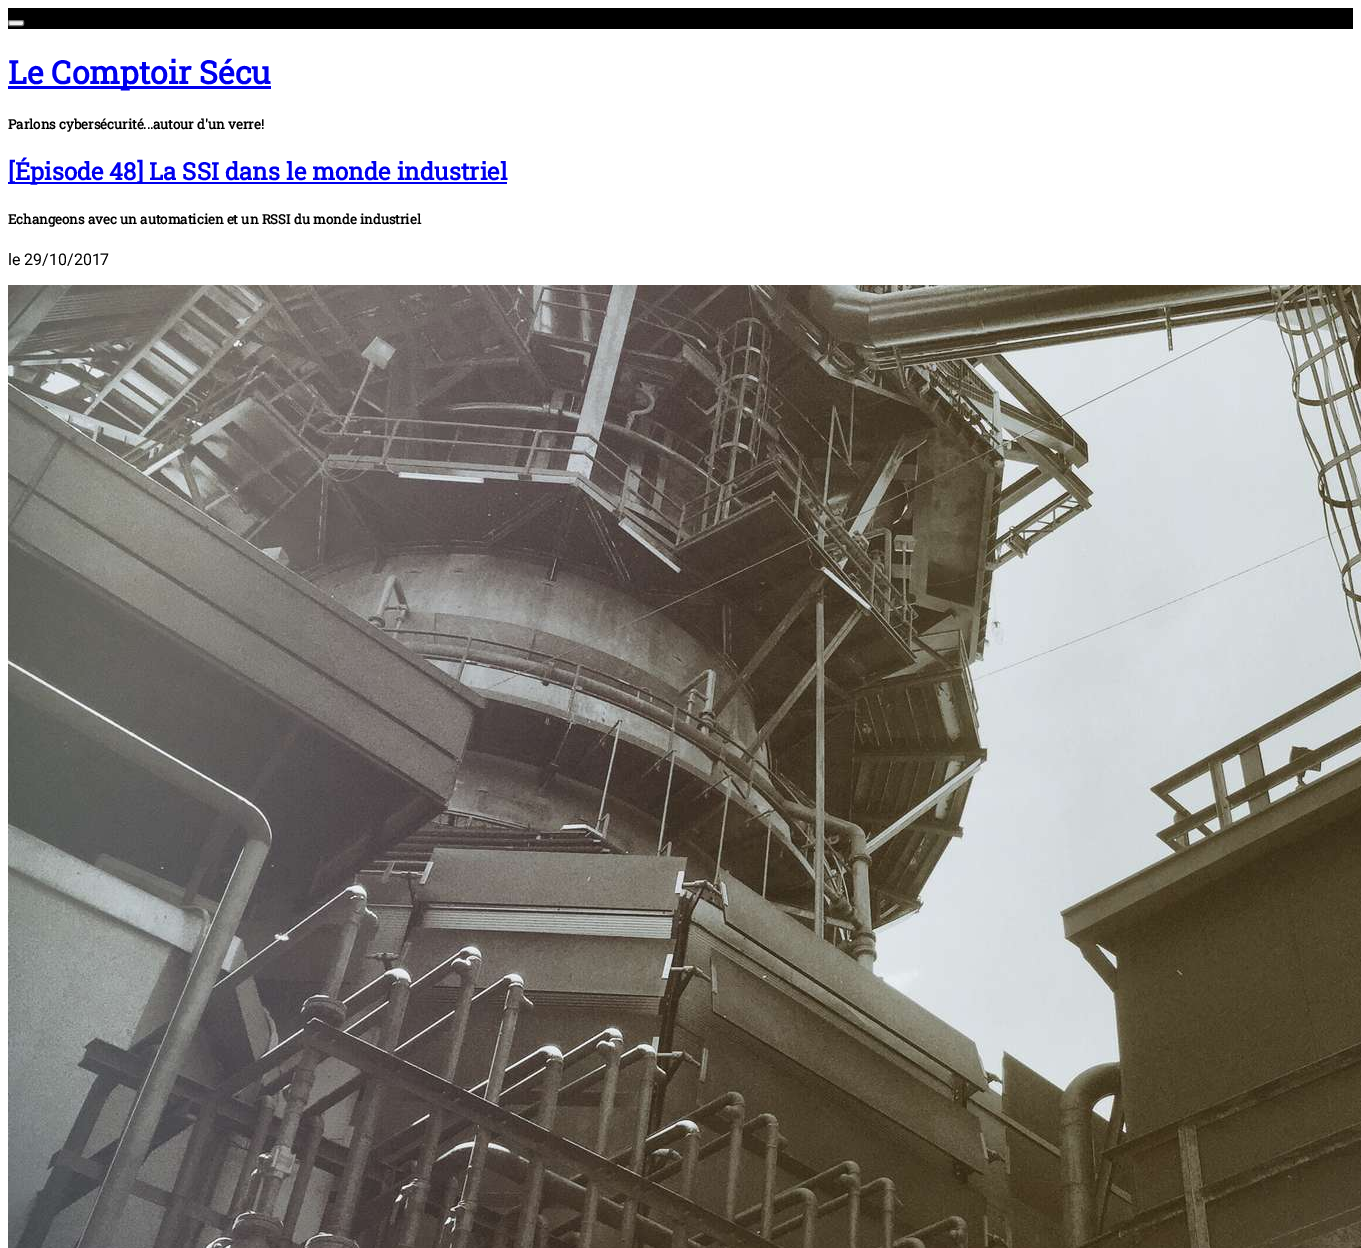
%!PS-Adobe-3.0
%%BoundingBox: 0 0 1361 1248
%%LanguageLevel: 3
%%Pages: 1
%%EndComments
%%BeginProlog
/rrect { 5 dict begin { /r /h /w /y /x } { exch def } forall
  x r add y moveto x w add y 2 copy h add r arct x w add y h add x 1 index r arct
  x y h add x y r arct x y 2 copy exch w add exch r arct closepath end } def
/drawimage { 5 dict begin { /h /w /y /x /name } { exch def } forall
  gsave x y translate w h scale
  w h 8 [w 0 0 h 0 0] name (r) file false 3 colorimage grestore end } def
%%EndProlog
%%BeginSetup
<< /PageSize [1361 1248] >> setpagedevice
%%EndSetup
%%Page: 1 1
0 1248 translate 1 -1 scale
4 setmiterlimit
1 setgray
0 0 1361 1248 rectfill
0 setgray
8 8 1345 21 rectfill
0.937 setgray
8.5 20.5 15 5 1.5 rrect gsave fill grestore
0.463 setgray
stroke
0 0 0.933 setrgbcolor
8 86 263 3 rectfill
8 182 499 2 rectfill
(images/1.raw) 8 285 1353 963 drawimage
/RobotoSlab-Bold [32 0 0 -32 0 0] selectfont
8 84 moveto (Le Comptoir Sécu) show
/RobotoSlab-Bold [13.25 0 0 -13.25 0 0] selectfont
0 setgray
8 129 moveto (Parlons cybersécurité...autour d'un verre!) show
/RobotoSlab-Bold [24 0 0 -24 0 0] selectfont
0 0 0.933 setrgbcolor
8 180 moveto ([Épisode 48] La SSI dans le monde industriel) show
/RobotoSlab-Bold [13.25 0 0 -13.25 0 0] selectfont
0 setgray
8 224 moveto (Echangeons avec un automaticien et un RSSI du monde industriel) show
/Roboto-Regular [16 0 0 -16 0 0] selectfont
8 265 moveto (le 29/10/2017) show
showpage
%%EOF
